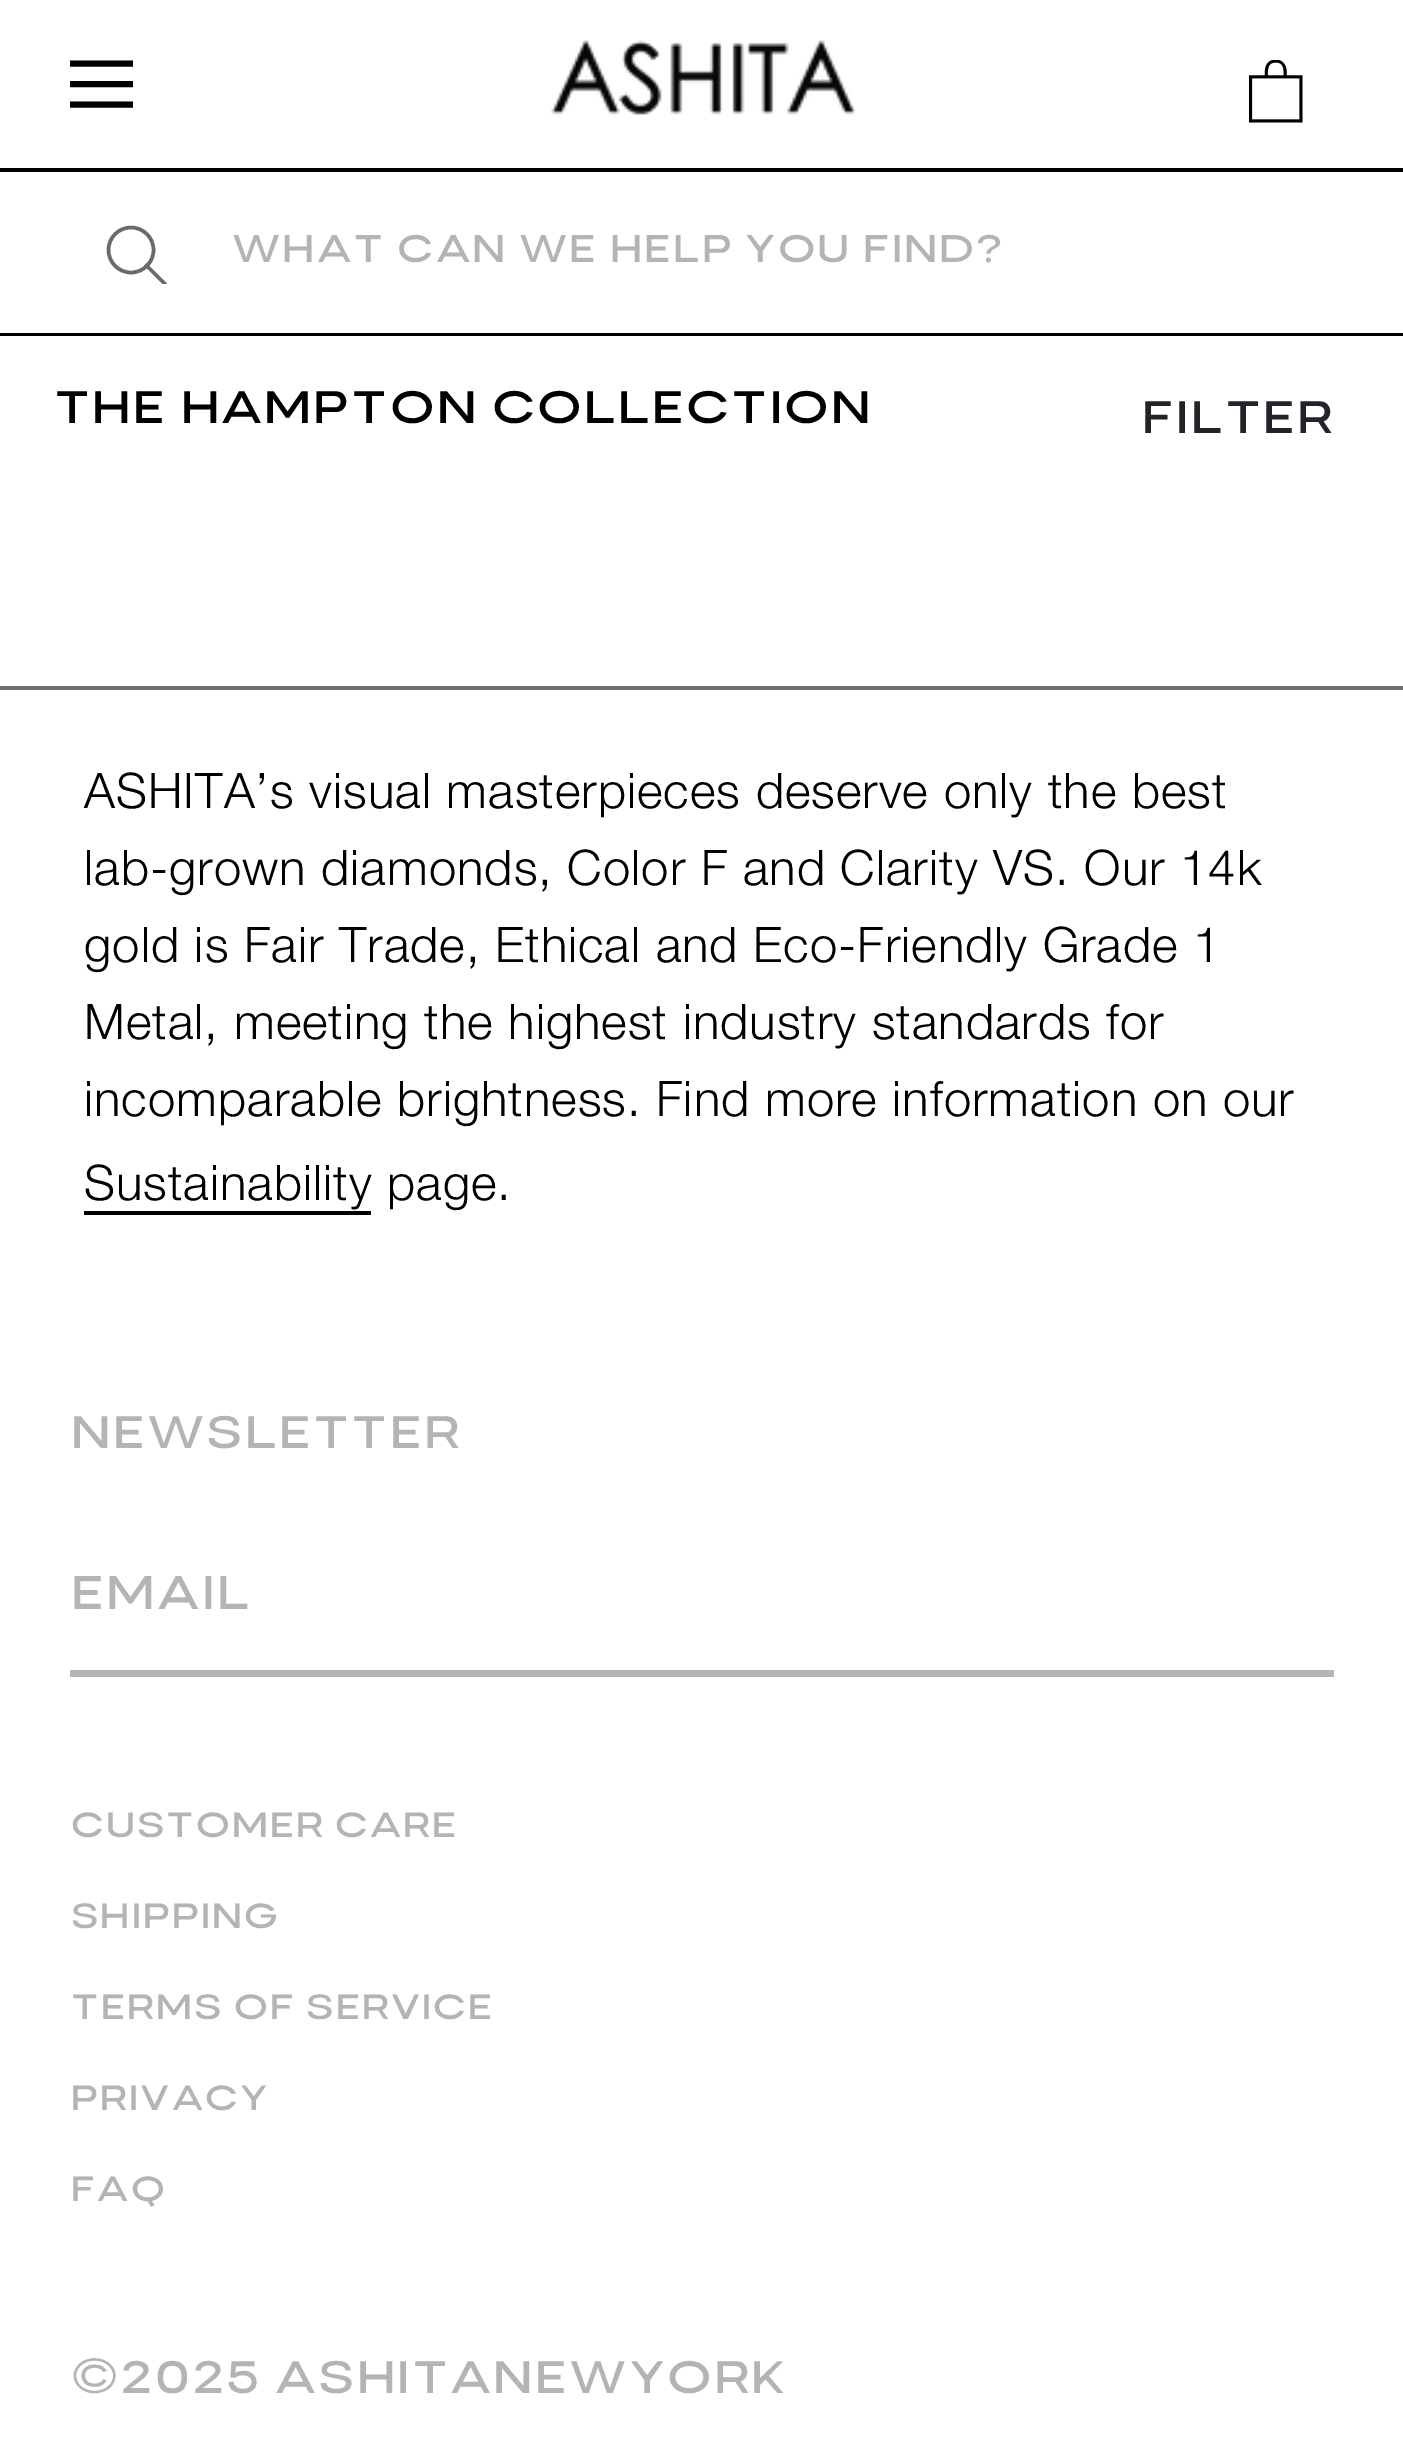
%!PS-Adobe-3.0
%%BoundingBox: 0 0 1403 2449
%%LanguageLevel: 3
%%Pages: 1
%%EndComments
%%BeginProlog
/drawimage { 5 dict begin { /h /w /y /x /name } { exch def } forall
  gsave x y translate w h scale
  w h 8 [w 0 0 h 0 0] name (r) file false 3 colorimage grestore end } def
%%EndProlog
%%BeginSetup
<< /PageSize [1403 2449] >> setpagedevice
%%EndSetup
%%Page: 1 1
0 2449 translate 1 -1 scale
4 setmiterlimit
1 setgray
0 0 1403 2449 rectfill
0 setgray
0 168 1403 4 rectfill
gsave
70 53 63 63 rectclip
3.1 setlinewidth
newpath 70 106 moveto 70 103 lineto 133 103 lineto 133 106 lineto closepath 70 82.5 moveto 133 82.5 lineto 133 85.5 lineto 70 85.5 lineto closepath 70 62 moveto 133 62 lineto 133 65 lineto 70 65 lineto closepath stroke
grestore
(images/1.raw) 551 40 305 75 drawimage
(images/2.raw) 1248 60 55 63 drawimage
0 333 1403 3 rectfill
gsave
105 224 63 60 rectclip
0.416 setgray
3.5 setlinewidth
2 setlinecap
newpath 164.5 283.5 moveto 146.5 265.5 lineto stroke
grestore
0.416 setgray
3.5 setlinewidth
newpath 131 250 22.5 0 360 arc closepath stroke
0.439 setgray
0 686 1403 4 rectfill
0 setgray
84 1211 287 4 rectfill
0.698 0.706 0.718 setrgbcolor
70 1670 1264 7 rectfill
/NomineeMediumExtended-Medium [38.5 0 0 -38.5 0 0] selectfont
231 262 moveto (WHAT CAN WE HELP YOU FIND?) show
/NomineeMediumExtended-Medium [45.5 0 0 -45.5 0 0] selectfont
0 setgray
53 423 moveto (THE HAMPTON COLLECTION) show
0.129 0.145 0.161 setrgbcolor
1141 433 moveto (FILTER) show
/HelveticaNeue-Light [49 0 0 -49 0 0] selectfont
0 setgray
84 808 moveto 1.05 0 (ASHITA’s visual masterpieces deserve only the best) ashow
84 885 moveto 1.05 0 (lab-grown diamonds, Color F and Clarity VS. Our 14k) ashow
84 962 moveto 1.05 0 (gold is Fair Trade, Ethical and Eco-Friendly Grade 1) ashow
84 1039 moveto 1.05 0 (Metal, meeting the highest industry standards for) ashow
84 1116 moveto 1.05 0 (incomparable brightness. Find more information on our) ashow
84 1200 moveto 1.05 0 (Sustainability page.) ashow
/NomineeMediumExtended-Medium [45.5 0 0 -45.5 0 0] selectfont
0.698 0.706 0.718 setrgbcolor
70 1448 moveto (NEWSLETTER) show
/NomineeMediumExtended-Medium [47 0 0 -47 0 0] selectfont
70 1609 moveto (EMAIL) show
/NomineeMediumExtended-Medium [35 0 0 -35 0 0] selectfont
70 1837 moveto (CUSTOMER CARE) show
70 1928 moveto (SHIPPING) show
70 2019 moveto (TERMS OF SERVICE) show
70 2110 moveto (PRIVACY) show
70 2201 moveto (FAQ) show
/NomineeMediumExtended-Medium [45.5 0 0 -45.5 0 0] selectfont
70 2393 moveto (©2025 ASHITANEWYORK) show
showpage
%%EOF
